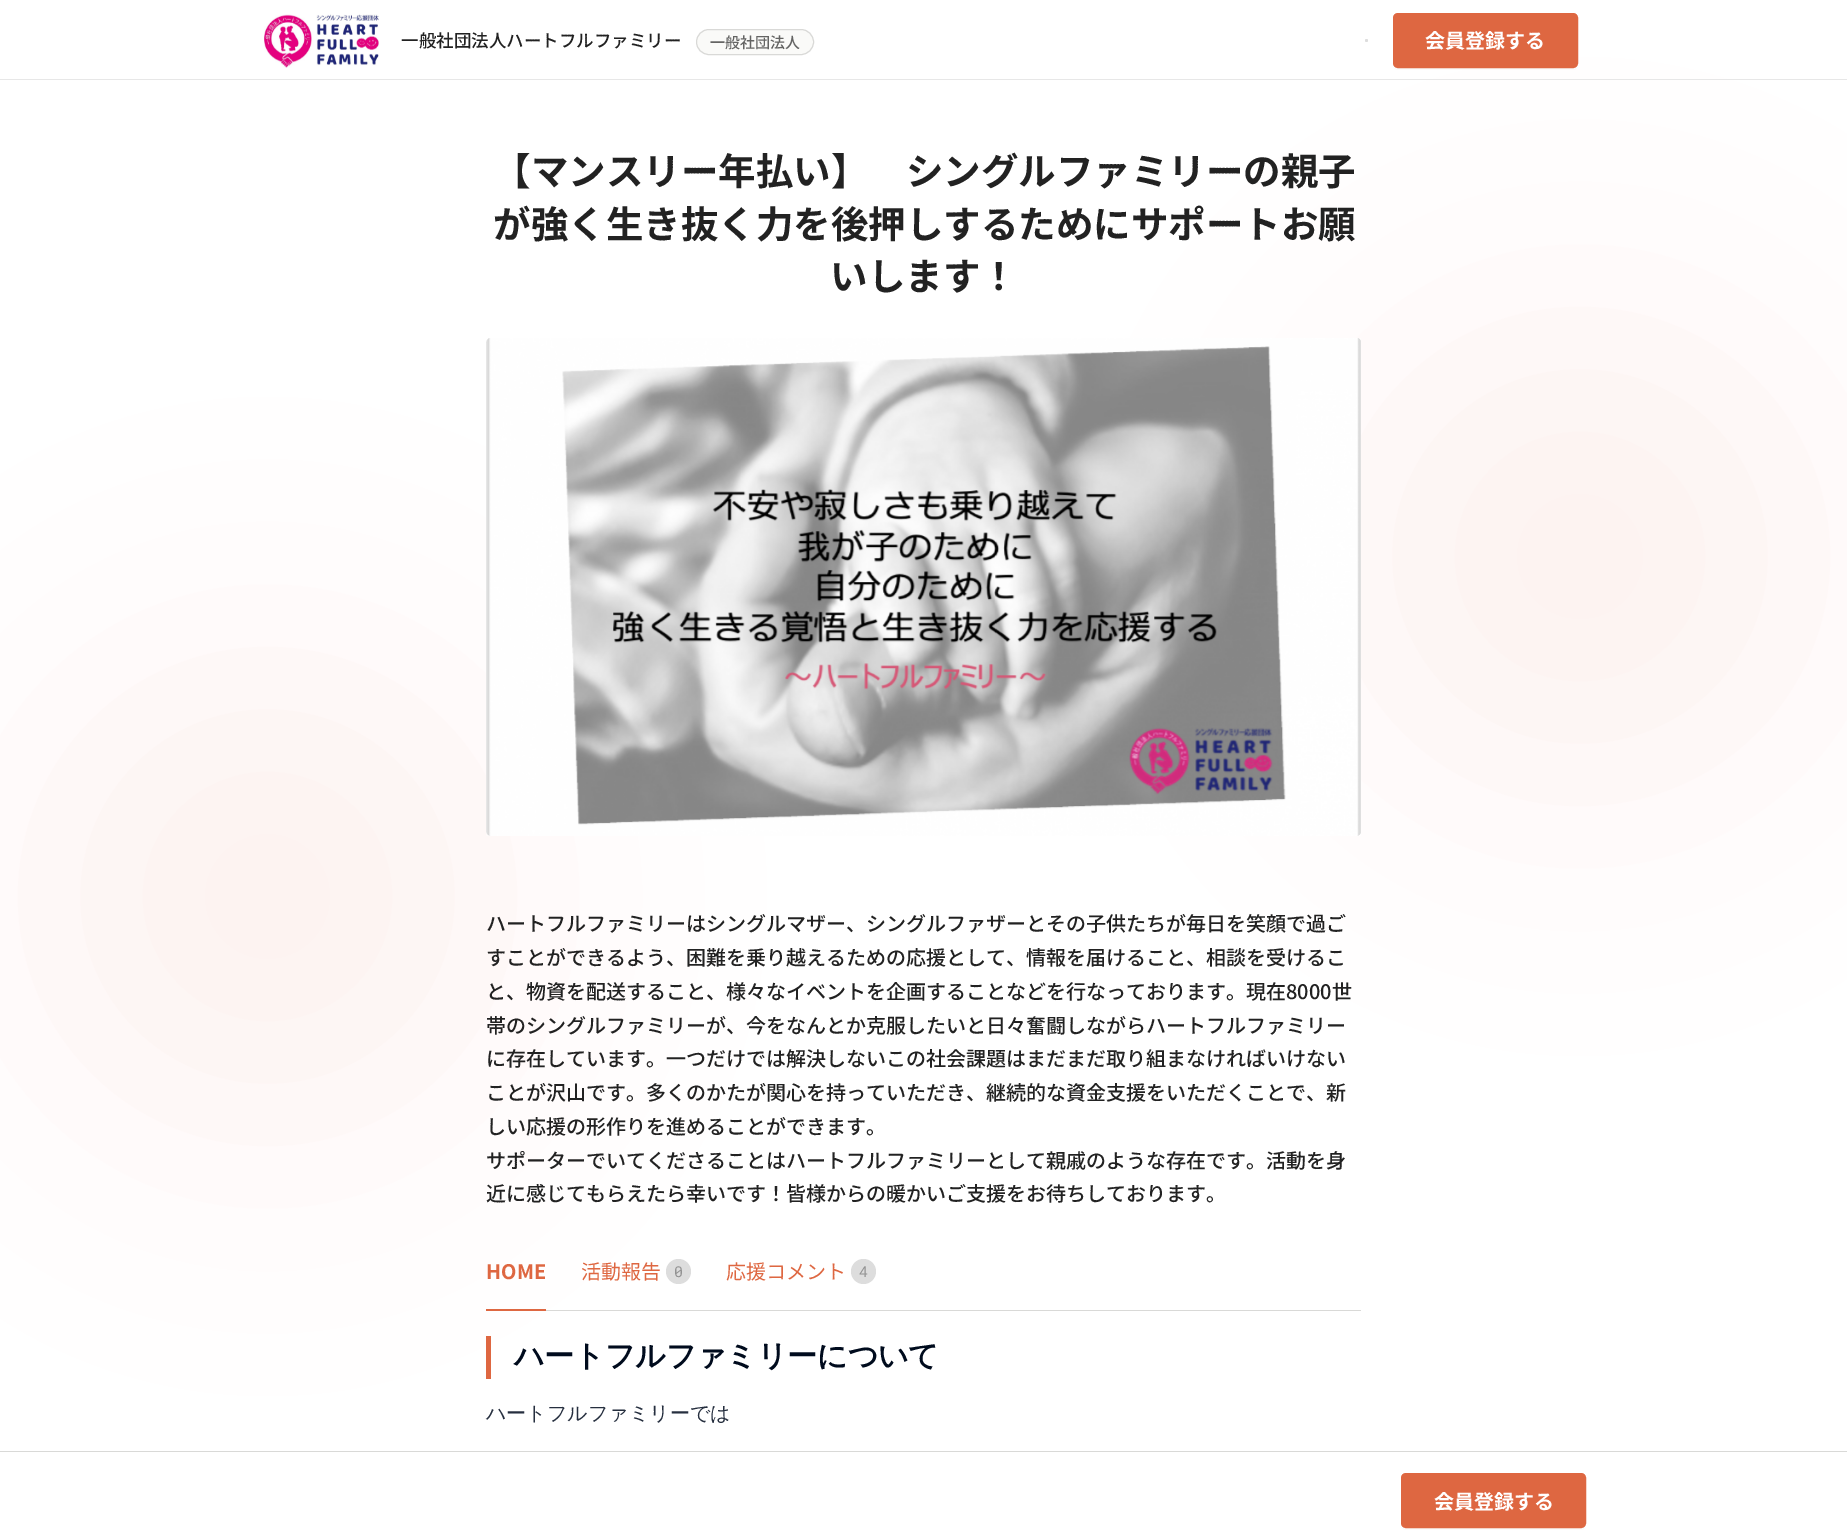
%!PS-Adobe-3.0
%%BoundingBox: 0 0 1847 1538
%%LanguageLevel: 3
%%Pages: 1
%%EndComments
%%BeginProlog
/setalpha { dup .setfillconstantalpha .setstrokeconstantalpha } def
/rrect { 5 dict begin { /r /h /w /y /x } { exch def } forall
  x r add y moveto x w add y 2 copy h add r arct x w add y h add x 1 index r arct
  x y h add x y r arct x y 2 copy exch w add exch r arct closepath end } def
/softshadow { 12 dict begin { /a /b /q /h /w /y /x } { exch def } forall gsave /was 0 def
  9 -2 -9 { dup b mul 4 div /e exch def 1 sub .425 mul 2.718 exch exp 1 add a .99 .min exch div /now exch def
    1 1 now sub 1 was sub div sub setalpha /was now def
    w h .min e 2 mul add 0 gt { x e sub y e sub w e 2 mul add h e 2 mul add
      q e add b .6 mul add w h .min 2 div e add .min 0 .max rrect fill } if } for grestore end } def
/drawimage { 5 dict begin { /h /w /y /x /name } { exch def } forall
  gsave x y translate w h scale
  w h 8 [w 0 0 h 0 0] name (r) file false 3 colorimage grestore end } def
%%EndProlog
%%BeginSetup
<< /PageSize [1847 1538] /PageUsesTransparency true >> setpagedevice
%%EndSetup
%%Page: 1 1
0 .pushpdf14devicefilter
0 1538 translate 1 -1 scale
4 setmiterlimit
1 setgray
0 0 1847 1538 rectfill
0.871 0.404 0.255 setrgbcolor
1361 338 438 437 218.5 125 0.08 softshadow
0.906 setgray
0 79 1847 1 rectfill
(images/1.raw) 264 14 115 54 drawimage
0.98 0.98 0.973 setrgbcolor
696.5 29.5 117 25 12.5 rrect gsave fill grestore
0.851 0.851 0.843 setrgbcolor
stroke
0.867 setgray
newpath 1366.5 40.5 1.5 0 360 arc closepath fill
0.984 setgray
newpath 1393 65 moveto 1393 68 1395 70 1398 70 curveto 1573 70 lineto 1576 70 1578 68 1578 65 curveto 1578 20 lineto 1578 18 lineto 1578 62 lineto 1578 65 1575 68 1572 68 curveto 1398 68 lineto 1396 68 1394 66 1393 65 curveto closepath fill
0.871 0.404 0.255 setrgbcolor
1394.5 14.5 182 52 3.5 rrect gsave fill grestore
3 setlinewidth
stroke
49 678 437 437 218.5 125 0.08 softshadow
0.973 setgray
486 338 875 498 5 rrect fill
(images/2.raw) 486 338 875 498 drawimage
0.867 setgray
newpath 678.5 1271.5 12.5 0 360 arc closepath fill
newpath 863.5 1271.5 12.5 0 360 arc closepath fill
0.871 0.404 0.255 setrgbcolor
486 1309 60 2 rectfill
0.851 0.851 0.843 setrgbcolor
546 1310 815 1 rectfill
0.871 0.404 0.255 setrgbcolor
486 1336 5 43 rectfill
0.851 0.851 0.843 setrgbcolor
0 1451 1847 1 rectfill
0.984 setgray
newpath 1401 1478 moveto 1401 1525 lineto 1401 1528 1403 1530 1406 1530 curveto 1581 1530 lineto 1584 1530 1586 1528 1586 1525 curveto 1586 1524 lineto 1585 1526 1583 1528 1581 1528 curveto 1406 1528 lineto 1403 1528 1401 1525 1401 1522 curveto closepath fill
0.871 0.404 0.255 setrgbcolor
1402.5 1474.5 182 52 3.5 rrect gsave fill grestore
stroke
/NotoSansJP-Medium [17.5 0 0 -17.5 0 0] selectfont
0.133 setgray
401 47 moveto (一般社団法人ハートフルファミリー) show
/NotoSansJP-Medium [15 0 0 -15 0 0] selectfont
0.392 0.392 0.388 setrgbcolor
710 48 moveto (一般社団法人) show
/NotoSansJP-Bold [20 0 0 -20 0 0] selectfont
1 setgray
1425 48 moveto (会員登録する) show
/NotoSansJP-Bold [37.5 0 0 -37.5 0 0] selectfont
0.133 setgray
493 185 moveto (【マンスリー年払い】　シングルファミリーの親子) show
493 238 moveto (が強く生き抜く力を後押しするためにサポートお願) show
830 290 moveto (いします！) show
/NotoSansJP-Medium [20 0 0 -20 0 0] selectfont
486 931 moveto (ハートフルファミリーはシングルマザー、シングルファザーとその子供たちが毎日を笑顔で過ご) show
486 965 moveto (すことができるよう、困難を乗り越えるための応援として、情報を届けること、相談を受けるこ) show
486 999 moveto (と、物資を配送すること、様々なイベントを企画することなどを行なっております。現在8000世) show
486 1033 moveto (帯のシングルファミリーが、今をなんとか克服したいと日々奮闘しながらハートフルファミリー) show
486 1066 moveto (に存在しています。一つだけでは解決しないこの社会課題はまだまだ取り組まなければいけない) show
486 1100 moveto (ことが沢山です。多くのかたが関心を持っていただき、継続的な資金支援をいただくことで、新) show
486 1134 moveto (しい応援の形作りを進めることができます。) show
486 1168 moveto (サポーターでいてくださることはハートフルファミリーとして親戚のような存在です。活動を身) show
486 1201 moveto (近に感じてもらえたら幸いです！皆様からの暖かいご支援をお待ちしております。) show
/NotoSansJP-Bold [20 0 0 -20 0 0] selectfont
0.871 0.404 0.255 setrgbcolor
486 1279 moveto (HOME) show
/NotoSansJP-Regular [20 0 0 -20 0 0] selectfont
581 1279 moveto (活動報告) show
/RobotoMono-Regular [15 0 0 -15 0 0] selectfont
0.573 setgray
674 1277 moveto (0) show
/NotoSansJP-Regular [20 0 0 -20 0 0] selectfont
0.871 0.404 0.255 setrgbcolor
726 1279 moveto (応援コメント) show
/RobotoMono-Regular [15 0 0 -15 0 0] selectfont
0.573 setgray
859 1277 moveto (4) show
/WenQuanYiZenHei-Bold [30 0 0 -30 0 0] selectfont
0 0.043 0.114 setrgbcolor
514 1366 moveto -0.25 0 (ハートフルファミリーについて) ashow
/WenQuanYiZenHei-Medium [20 0 0 -20 0 0] selectfont
0.149 0.184 0.247 setrgbcolor
486 1420 moveto (ハートフルファミリーでは) show
/NotoSansJP-Bold [20 0 0 -20 0 0] selectfont
1 setgray
1434 1509 moveto (会員登録する) show
.poppdf14devicefilter showpage
%%EOF
